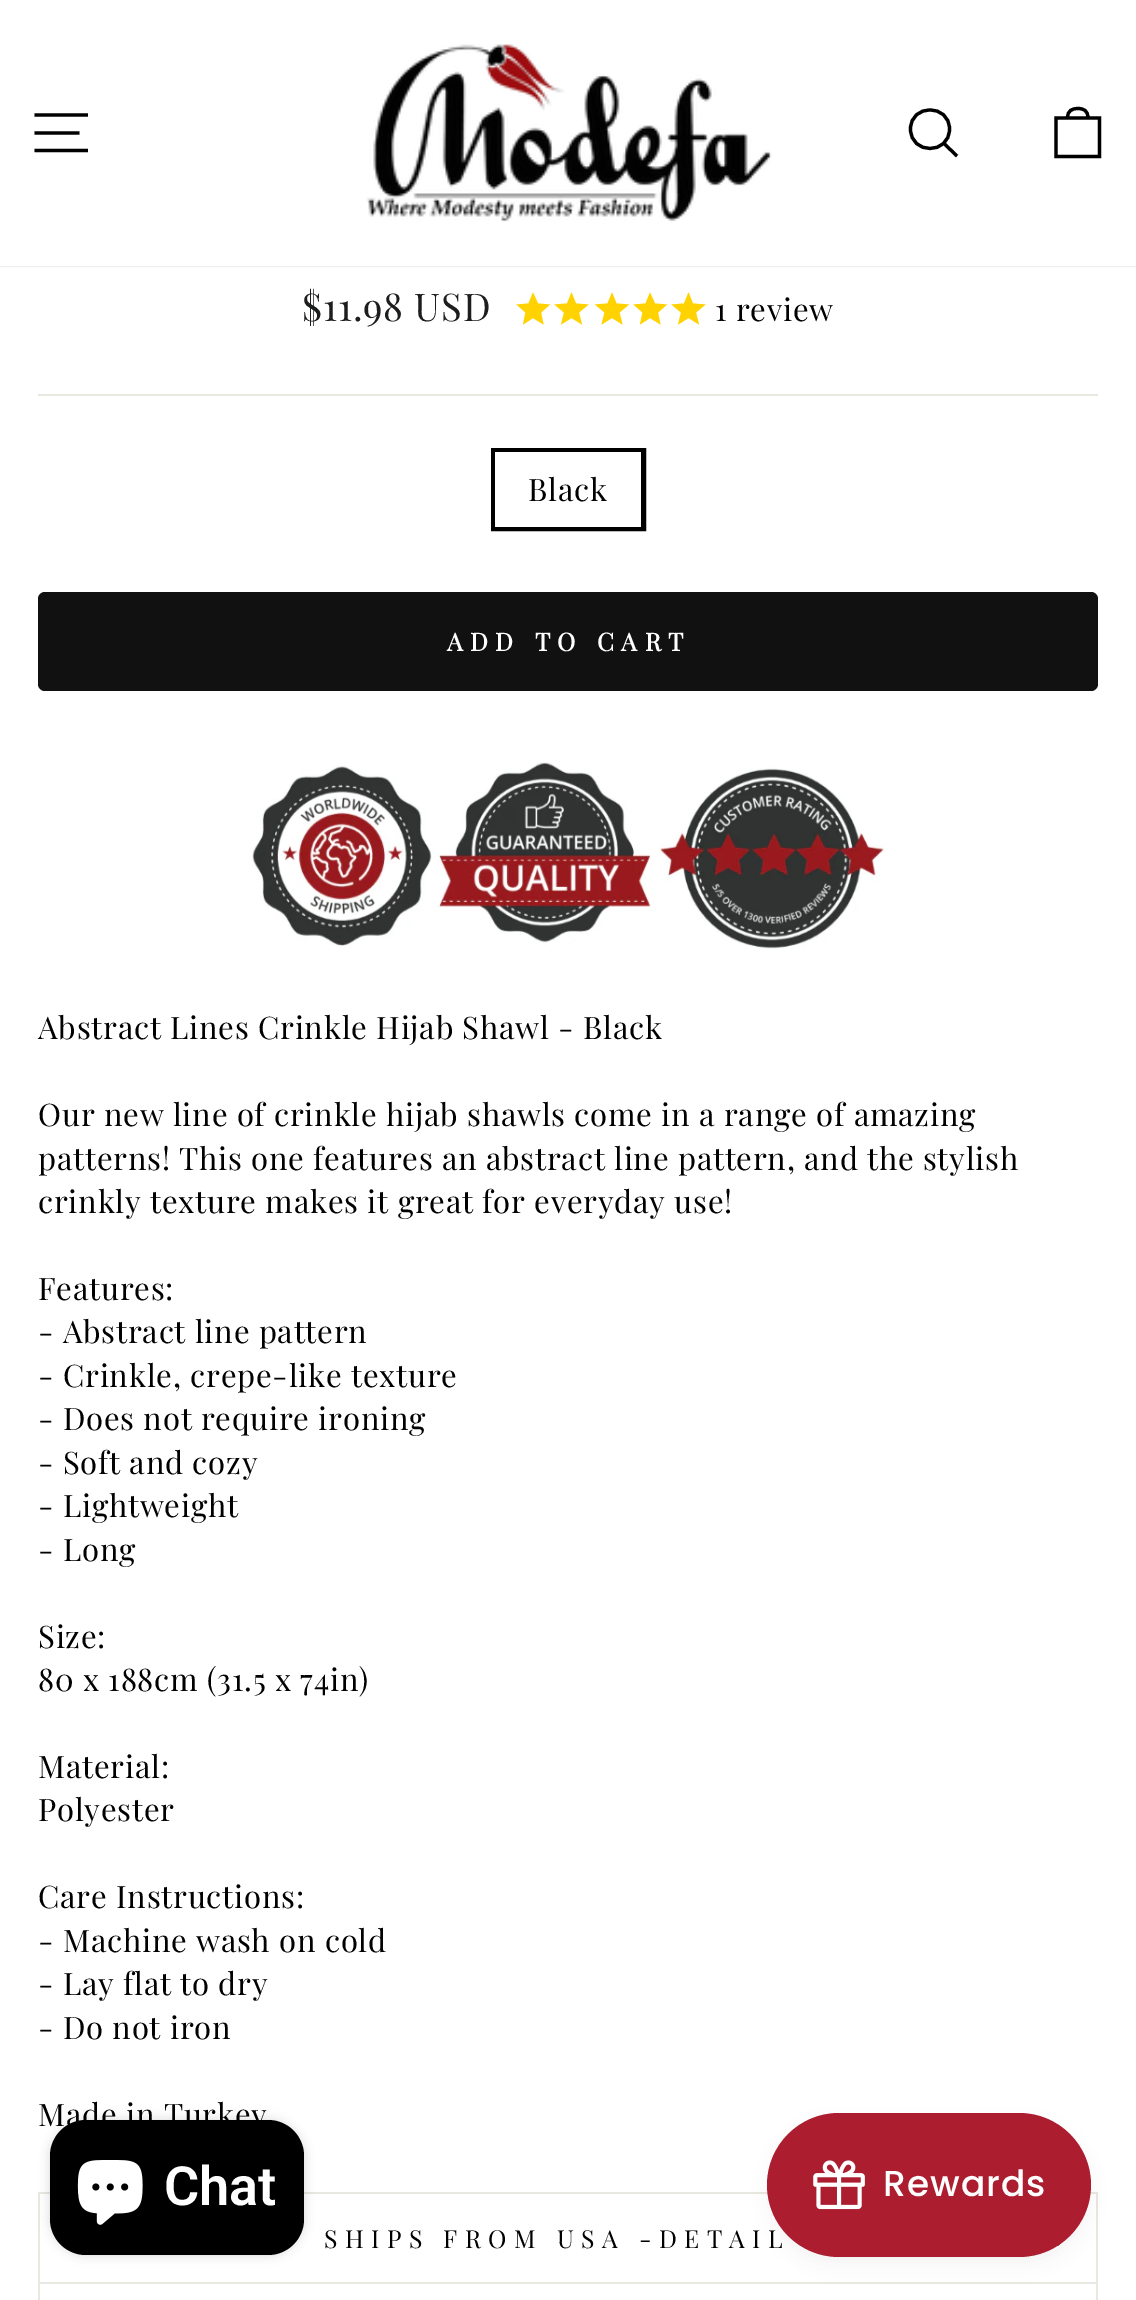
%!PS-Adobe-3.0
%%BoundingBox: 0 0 1136 2300
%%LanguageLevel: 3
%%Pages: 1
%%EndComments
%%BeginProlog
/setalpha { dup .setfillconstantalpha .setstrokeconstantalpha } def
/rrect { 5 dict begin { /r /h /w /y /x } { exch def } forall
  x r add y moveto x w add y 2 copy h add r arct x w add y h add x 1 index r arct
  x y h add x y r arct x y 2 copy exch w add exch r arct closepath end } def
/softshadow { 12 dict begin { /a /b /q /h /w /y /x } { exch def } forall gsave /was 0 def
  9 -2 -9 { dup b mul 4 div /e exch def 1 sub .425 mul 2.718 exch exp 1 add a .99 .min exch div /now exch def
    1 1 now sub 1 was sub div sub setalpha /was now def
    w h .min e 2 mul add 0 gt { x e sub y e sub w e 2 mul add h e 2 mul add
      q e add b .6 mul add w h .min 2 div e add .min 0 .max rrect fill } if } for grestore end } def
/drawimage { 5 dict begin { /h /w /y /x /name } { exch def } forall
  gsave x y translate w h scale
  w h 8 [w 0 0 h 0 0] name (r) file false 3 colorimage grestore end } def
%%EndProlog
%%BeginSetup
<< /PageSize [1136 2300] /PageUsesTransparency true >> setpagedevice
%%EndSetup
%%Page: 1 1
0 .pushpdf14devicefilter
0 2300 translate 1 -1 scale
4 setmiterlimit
1 setgray
0 0 1136 2300 rectfill
0 setgray
0 0 1136 266 0 1 0.2 softshadow
1 setgray
0 0 1136 266 rectfill
0 setgray
3.2 setlinewidth
newpath 34.5 115 moveto 88 115 lineto 34.5 133 moveto 79.5 133 lineto 34.5 150.5 moveto 88 150.5 lineto stroke
(images/1.raw) 366 44 406 178 drawimage
newpath 949.5 129 moveto 949.5 155 910.5 155 910.5 129 curveto 910.5 103.5 949.5 103.5 949.5 129 curveto closepath 957 156 moveto 944 143.5 lineto stroke
newpath 1056 118 moveto 1099.5 118 lineto 1099.5 156.5 lineto 1056 156.5 lineto closepath 1067.5 118 moveto 1067.5 110.5 1072 108.5 1078 108.5 curveto 1083.5 108.5 1088 110.5 1088 118 curveto stroke
1 0.824 0 setrgbcolor
newpath 533 318 moveto 523 324.5 lineto 525.5 312.5 lineto 516.5 304.5 lineto 528.5 303.5 lineto 533 292.5 lineto 538 303.5 lineto 550 304.5 lineto 541 312.5 lineto 543.5 324.5 lineto closepath fill
newpath 571.5 318 moveto 561 324.5 lineto 564 312.5 lineto 554.5 304.5 lineto 567 303.5 lineto 571.5 292.5 lineto 576 303.5 lineto 588.5 304.5 lineto 579 312.5 lineto 582 324.5 lineto closepath fill
newpath 612 318 moveto 601.5 324.5 lineto 604.5 312.5 lineto 595 304.5 lineto 607.5 303.5 lineto 612 292.5 lineto 616.5 303.5 lineto 629 304.5 lineto 619.5 312.5 lineto 622.5 324.5 lineto closepath fill
newpath 650 318 moveto 640 324.5 lineto 642.5 312.5 lineto 633.5 304.5 lineto 645.5 303.5 lineto 650 292.5 lineto 655 303.5 lineto 667 304.5 lineto 658 312.5 lineto 660.5 324.5 lineto closepath fill
newpath 688.5 318 moveto 678 324.5 lineto 681 312.5 lineto 671.5 304.5 lineto 684 303.5 lineto 688.5 292.5 lineto 693 303.5 lineto 705.5 304.5 lineto 696 312.5 lineto 699 324.5 lineto closepath fill
0.91 0.91 0.882 setrgbcolor
38 394 1060 2 rectfill
0 setgray
5 setlinewidth
493.5 450.5 150 78 rectstroke
1 setgray
495 452 146 75 rectfill
0.067 setgray
38 592 1060 99 7 rrect fill
(images/2.raw) 252 762 632 187 drawimage
0.91 0.91 0.882 setrgbcolor
38 2282 1060 2 rectfill
38 2192 1060 2 rectfill
1096 2192 2 90 rectfill
38 2192 2 90 rectfill
0 setgray
2.4 setlinewidth
newpath 1047.5 2233.5 moveto 1058 2244 lineto 1068 2233.5 lineto stroke
0.91 0.91 0.882 setrgbcolor
1096 2284 2 16 rectfill
38 2284 2 16 rectfill
0 setgray
50 2120 254 135 36 5.5 0.15 softshadow
50 2120 254 135 36 rrect fill
(images/3.raw) 77 2160 66 65 drawimage
0.267 setgray
772 2126 315 135 67.5 9 0.08 softshadow
/PlayfairDisplay-Regular [38.25 0 0 -38.25 0 0] selectfont
0.11 0.114 0.114 setrgbcolor
302 321 moveto 0.78 0 ($11.98 USD) ashow
/PlayfairDisplay-Regular [31.05 0 0 -31.05 0 0] selectfont
0 setgray
715 321 moveto 0.78 0 (1 review) ashow
528 501 moveto 0.78 0 (Black) ashow
/PlayfairDisplay-Bold [24.75 0 0 -24.75 0 0] selectfont
1 setgray
447 651 moveto 7.5 0 (ADD TO CART) ashow
/PlayfairDisplay-Regular [31.05 0 0 -31.05 0 0] selectfont
0 setgray
38 1039 moveto 0.78 0 (Abstract Lines Crinkle Hijab Shawl - Black) ashow
38 1126 moveto 0.78 0 (Our new line of crinkle hijab shawls come in a range of amazing) ashow
38 1170 moveto 0.78 0 (patterns! This one features an abstract line pattern, and the stylish) ashow
38 1213 moveto 0.78 0 (crinkly texture makes it great for everyday use!) ashow
38 1300 moveto 0.78 0 (Features:) ashow
38 1343 moveto 0.78 0 (- Abstract line pattern) ashow
38 1387 moveto 0.78 0 (- Crinkle, crepe-like texture) ashow
38 1430 moveto 0.78 0 (- Does not require ironing) ashow
38 1474 moveto 0.78 0 (- Soft and cozy) ashow
38 1517 moveto 0.78 0 (- Lightweight) ashow
38 1561 moveto 0.78 0 (- Long) ashow
38 1648 moveto 0.78 0 (Size:) ashow
38 1691 moveto 0.78 0 (80 x 188cm \(31.5 x 74in\)) ashow
38 1778 moveto 0.78 0 (Material:) ashow
38 1821 moveto 0.78 0 (Polyester) ashow
38 1908 moveto 0.78 0 (Care Instructions:) ashow
38 1952 moveto 0.78 0 (- Machine wash on cold) ashow
38 1995 moveto 0.78 0 (- Lay flat to dry) ashow
38 2039 moveto 0.78 0 (- Do not iron) ashow
38 2126 moveto 0.78 0 (Made in Turkey) ashow
/PlayfairDisplay-Regular [24.8 0 0 -24.8 0 0] selectfont
324 2248 moveto 7.45 0 (SHIPS FROM USA -DETAIL) ashow
/Roboto-SemiBold [54 0 0 -54 0 0] selectfont
1 setgray
164 2205 moveto (Chat) show
0.671 0.114 0.184 setrgbcolor
767 2113 324 144 72 rrect fill
(images/4.raw) 813 2160 52 50 drawimage
/Poppins-Medium [36 0 0 -36 0 0] selectfont
1 setgray
883 2196 moveto 1 0 (Rewards) ashow
.poppdf14devicefilter showpage
%%EOF
